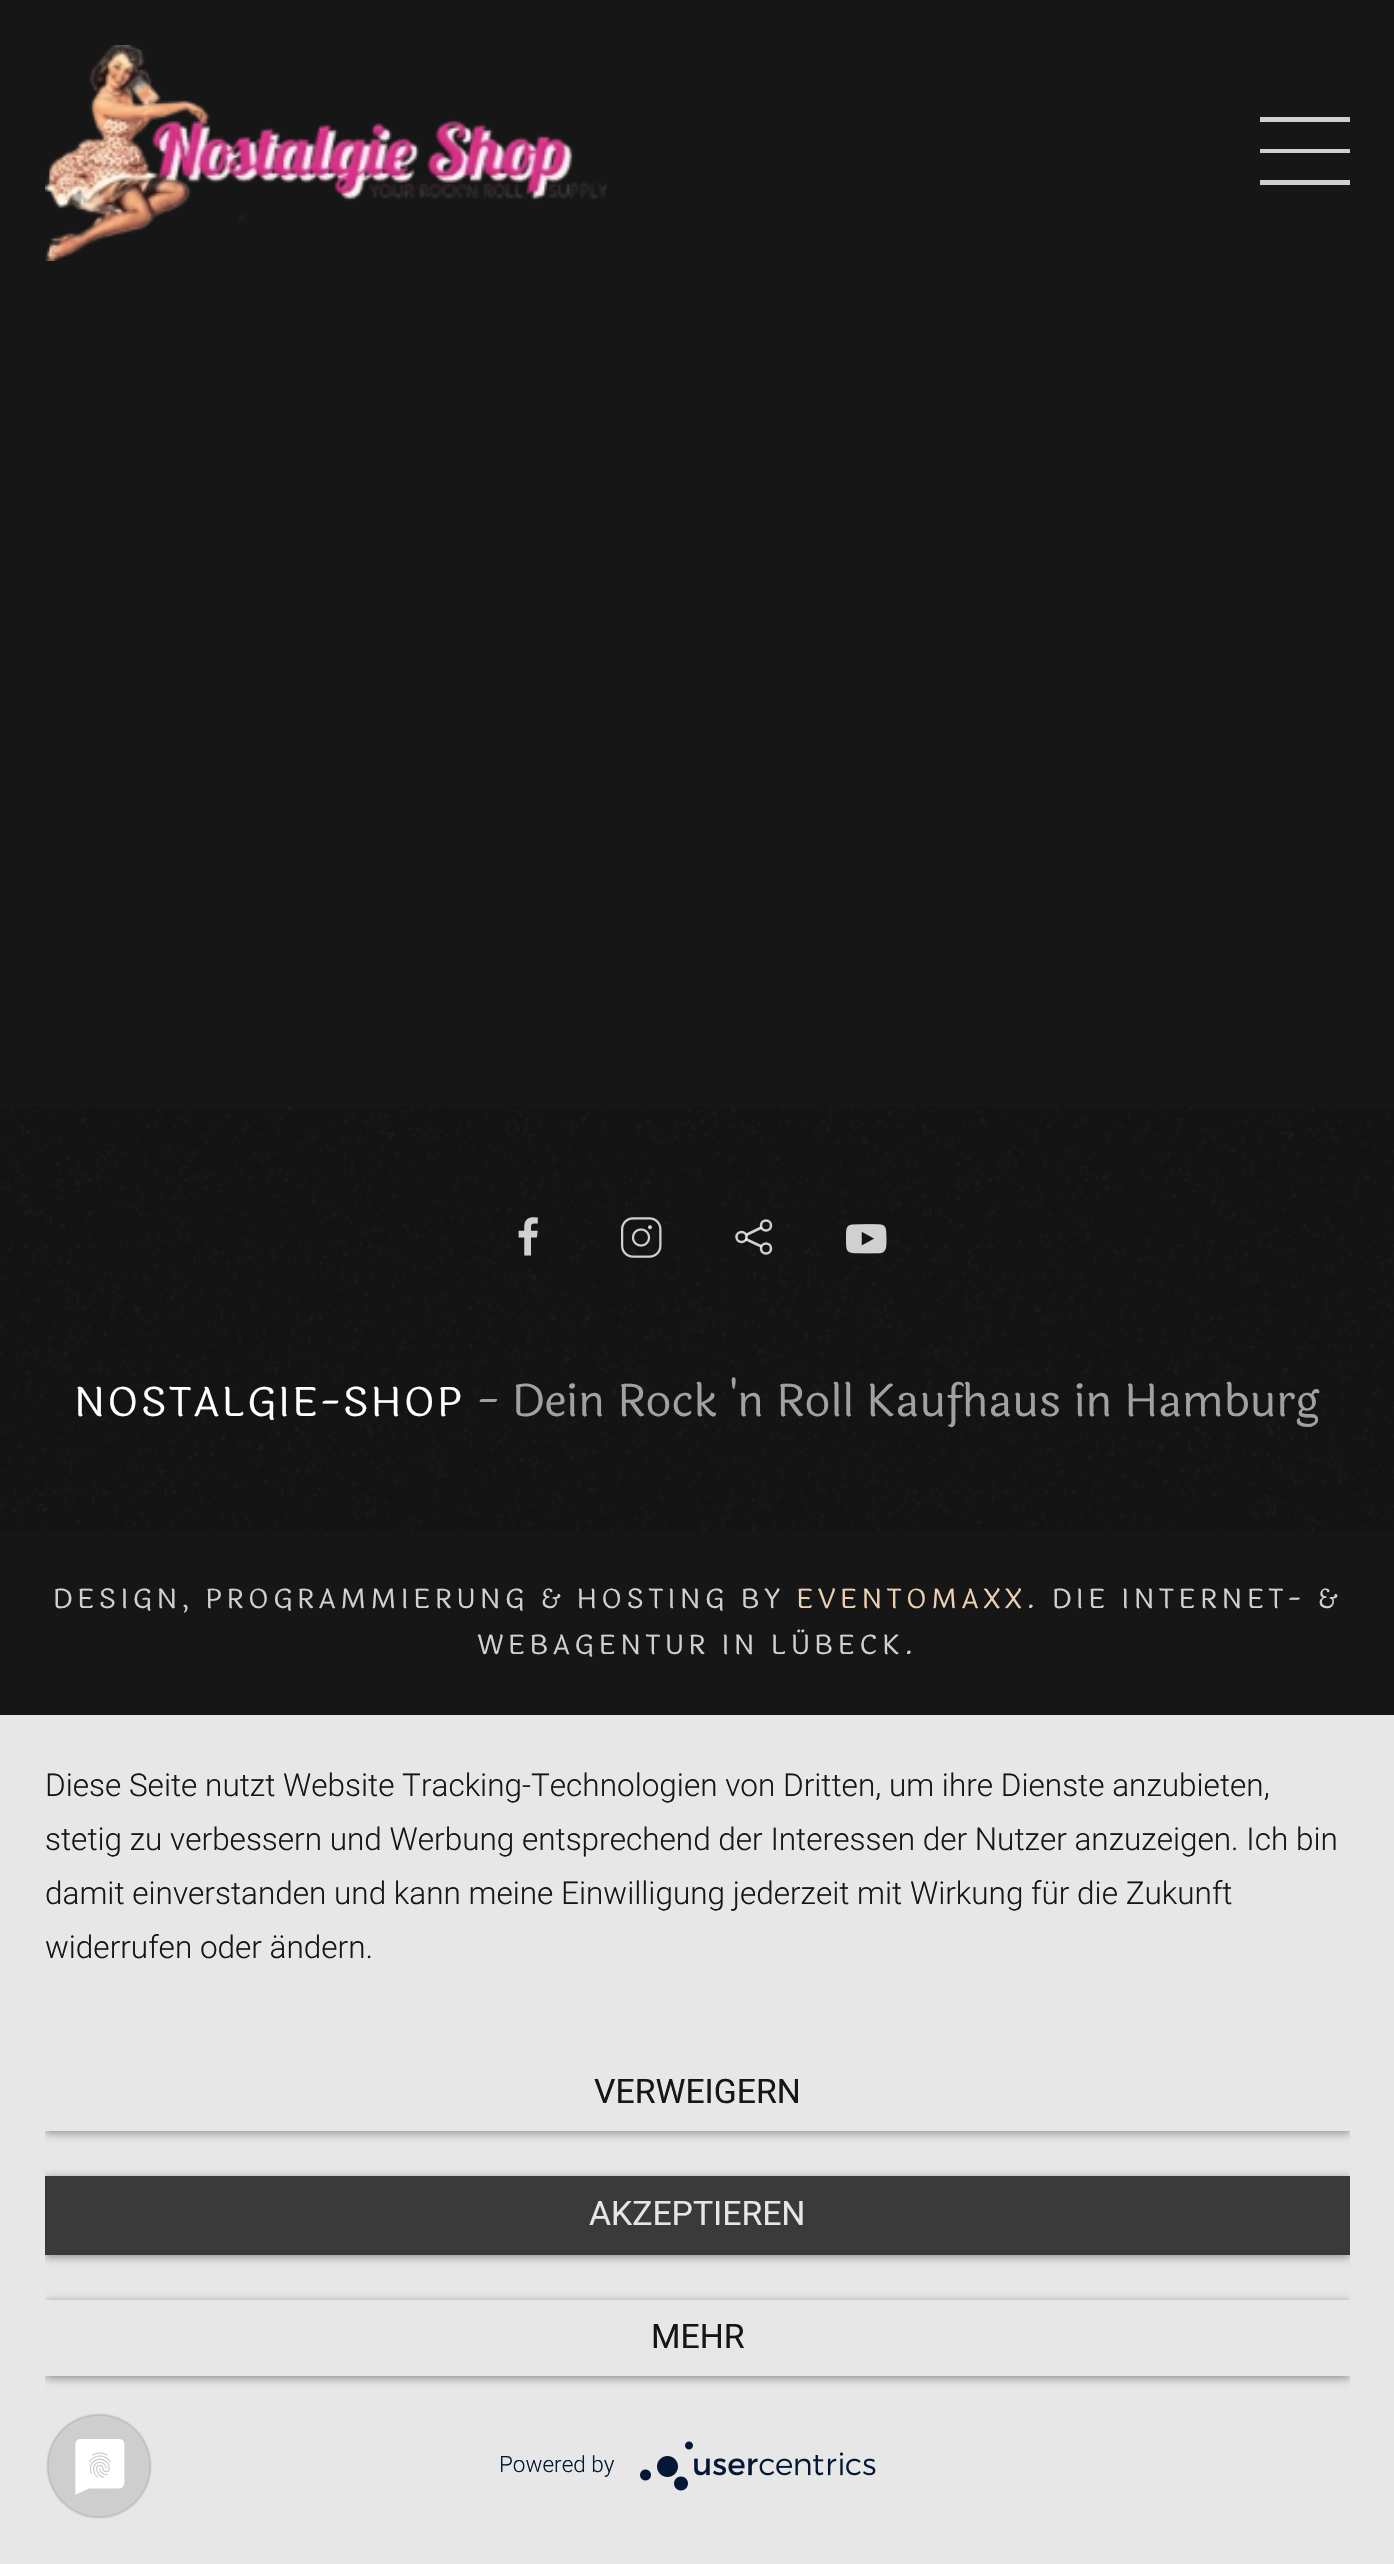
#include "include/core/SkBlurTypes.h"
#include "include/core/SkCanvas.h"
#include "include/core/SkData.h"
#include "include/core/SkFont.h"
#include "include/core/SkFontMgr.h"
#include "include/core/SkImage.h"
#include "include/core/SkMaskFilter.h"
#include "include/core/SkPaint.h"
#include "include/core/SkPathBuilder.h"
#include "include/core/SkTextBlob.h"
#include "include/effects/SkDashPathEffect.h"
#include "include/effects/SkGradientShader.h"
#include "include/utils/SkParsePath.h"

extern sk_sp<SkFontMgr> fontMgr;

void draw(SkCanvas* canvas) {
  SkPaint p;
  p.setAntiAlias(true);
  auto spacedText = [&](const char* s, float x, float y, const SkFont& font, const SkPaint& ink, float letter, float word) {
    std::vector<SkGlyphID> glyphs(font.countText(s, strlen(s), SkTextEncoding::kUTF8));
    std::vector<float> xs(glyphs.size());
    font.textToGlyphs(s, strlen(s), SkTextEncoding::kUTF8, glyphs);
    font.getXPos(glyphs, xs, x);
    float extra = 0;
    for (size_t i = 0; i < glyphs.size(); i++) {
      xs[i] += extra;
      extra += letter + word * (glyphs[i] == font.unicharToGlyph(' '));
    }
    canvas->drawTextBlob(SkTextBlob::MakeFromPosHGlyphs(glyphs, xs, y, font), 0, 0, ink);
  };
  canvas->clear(SkColorSetRGB(22, 22, 22));
  canvas->drawImageRect(SkImages::DeferredFromEncodedData(SkData::MakeFromFileName("images/1.png")), SkRect::MakeLTRB(45, 45, 607, 261), SkSamplingOptions());
  p.setColor(SkColorSetRGB(208, 208, 208));
  canvas->drawRect(SkRect::MakeLTRB(1260, 117, 1350, 122), p);
  canvas->drawRect(SkRect::MakeLTRB(1260, 149, 1350, 153), p);
  canvas->drawRect(SkRect::MakeLTRB(1260, 180, 1350, 185), p);
  p.setColor(SkColorSetRGB(19, 19, 19));
  canvas->drawRect(SkRect::MakeLTRB(0, 1107, 1394, 1532), p);
  canvas->drawImageRect(SkImages::DeferredFromEncodedData(SkData::MakeFromFileName("images/2.png")), SkRect::MakeLTRB(0, 1107, 1394, 1532), SkSamplingOptions());
  canvas->drawImageRect(SkImages::DeferredFromEncodedData(SkData::MakeFromFileName("images/3.png")), SkRect::MakeLTRB(518, 1217, 538, 1256), SkSamplingOptions());
  canvas->drawImageRect(SkImages::DeferredFromEncodedData(SkData::MakeFromFileName("images/4.png")), SkRect::MakeLTRB(621, 1217, 662, 1258), SkSamplingOptions());
  p.setStyle(SkPaint::kStroke_Style);
  p.setStrokeWidth(2.5f);
  p.setColor(SkColorSetARGB(204, 255, 255, 255));
  canvas->drawPath(SkPathBuilder().moveTo(761.5f, 1246.5f).lineTo(745.5f, 1239).moveTo(761.5f, 1227.5f).lineTo(746, 1235).detach(), p);
  canvas->drawCircle(741.5f, 1237, 5, p);
  canvas->drawCircle(766, 1225.5f, 5, p);
  canvas->drawCircle(766, 1248.5f, 5, p);
  canvas->drawImageRect(SkImages::DeferredFromEncodedData(SkData::MakeFromFileName("images/5.png")), SkRect::MakeLTRB(846, 1224, 887, 1254), SkSamplingOptions());
  p.setStyle(SkPaint::kFill_Style);
  p.setColor(SkColorSetRGB(231, 231, 231));
  canvas->drawRect(SkRect::MakeLTRB(0, 1715, 1394, 2564), p);
  canvas->save();
  canvas->clipRect(SkRect::MakeLTRB(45, 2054, 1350, 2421));
  p.setColor(SkColorSetARGB(102, 0, 0, 0));
  p.setMaskFilter(SkMaskFilter::MakeBlur(kNormal_SkBlurStyle, 4.5f));
  canvas->drawRect(SkRect::MakeLTRB(45, 2057, 1350, 2133), p);
  p.setMaskFilter(nullptr);
  canvas->restore();
  p.setColor(SkColorSetRGB(231, 231, 231));
  canvas->drawRect(SkRect::MakeLTRB(45, 2054, 1350, 2131), p);
  canvas->save();
  canvas->clipRect(SkRect::MakeLTRB(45, 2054, 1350, 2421));
  p.setColor(SkColorSetARGB(102, 0, 0, 0));
  p.setMaskFilter(SkMaskFilter::MakeBlur(kNormal_SkBlurStyle, 4.5f));
  canvas->drawRect(SkRect::MakeLTRB(45, 2178, 1350, 2257), p);
  p.setMaskFilter(nullptr);
  canvas->restore();
  p.setColor(SkColorSetRGB(58, 58, 58));
  canvas->drawRect(SkRect::MakeLTRB(45, 2176, 1350, 2255), p);
  canvas->save();
  canvas->clipRect(SkRect::MakeLTRB(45, 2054, 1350, 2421));
  canvas->clipPath(SkPathBuilder(SkPathFillType::kEvenOdd).moveTo(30, 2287).lineTo(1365, 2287).lineTo(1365, 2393).lineTo(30, 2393).close().moveTo(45, 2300).lineTo(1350, 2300).lineTo(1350, 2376).lineTo(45, 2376).close().detach(), true);
  p.setColor(SkColorSetARGB(102, 0, 0, 0));
  p.setMaskFilter(SkMaskFilter::MakeBlur(kNormal_SkBlurStyle, 4.5f));
  canvas->drawRect(SkRect::MakeLTRB(45, 2302, 1350, 2378), p);
  p.setMaskFilter(nullptr);
  canvas->restore();
  canvas->drawImageRect(SkImages::DeferredFromEncodedData(SkData::MakeFromFileName("images/6.png")), SkRect::MakeLTRB(640, 2441, 876, 2491), SkSamplingOptions());
  canvas->drawImageRect(SkImages::DeferredFromEncodedData(SkData::MakeFromFileName("images/7.png")), SkRect::MakeLTRB(46, 2413, 152, 2519), SkSamplingOptions());
  SkFont font1(fontMgr->matchFamilyStyle("Laila", SkFontStyle::Normal()), 40.5f);
  font1.setSubpixel(true);
  p.setColor(SK_ColorWHITE);
  spacedText("NOSTALGIE-SHOP", 74, 1416, font1, p, 2.25f, 0);
  SkFont font2(fontMgr->matchFamilyStyle("Laila", SkFontStyle::Normal()), 45);
  font2.setSubpixel(true);
  p.setColor(SkColorSetRGB(161, 161, 161));
  canvas->drawString("- Dein Rock 'n Roll Kaufhaus in Hamburg", 477, 1416, font2, p);
  SkFont font3(fontMgr->matchFamilyStyle("Laila", SkFontStyle::Normal()), 27);
  font3.setSubpixel(true);
  p.setColor(SkColorSetRGB(208, 208, 208));
  spacedText("DESIGN, PROGRAMMIERUNG & HOSTING BY", 53, 1608, font3, p, 4.5f, 0);
  p.setColor(SkColorSetRGB(236, 208, 178));
  spacedText("EVENTOMAXX", 796, 1608, font3, p, 4.5f, 0);
  p.setColor(SkColorSetRGB(208, 208, 208));
  spacedText(". DIE INTERNET- &", 1026, 1608, font3, p, 4.5f, 0);
  spacedText("WEBAGENTUR IN LÜBECK.", 477, 1654, font3, p, 4.5f, 0);
  SkFont font4(fontMgr->matchFamilyStyle("Roboto", SkFontStyle(300, SkFontStyle::kNormal_Width, SkFontStyle::kUpright_Slant)), 31.5f);
  font4.setSubpixel(true);
  p.setColor(SkColorSetRGB(22, 22, 22));
  canvas->drawString("Diese Seite nutzt Website Tracking-Technologien von Dritten, um ihre Dienste anzubieten,", 45, 1796, font4, p);
  canvas->drawString("stetig zu verbessern und Werbung entsprechend der Interessen der Nutzer anzuzeigen. Ich bin", 45, 1850, font4, p);
  canvas->drawString("damit einverstanden und kann meine Einwilligung jederzeit mit Wirkung für die Zukunft", 45, 1904, font4, p);
  canvas->drawString("widerrufen oder ändern.", 45, 1958, font4, p);
  SkFont font5(fontMgr->matchFamilyStyle("Roboto", SkFontStyle::Normal()), 33.75f);
  font5.setSubpixel(true);
  canvas->drawString("VERWEIGERN", 594, 2103, font5, p);
  p.setColor(SkColorSetRGB(230, 230, 230));
  canvas->drawString("AKZEPTIEREN", 589, 2225, font5, p);
  p.setColor(SkColorSetRGB(22, 22, 22));
  canvas->drawString("MEHR", 651, 2348, font5, p);
  SkFont font6(fontMgr->matchFamilyStyle("Roboto", SkFontStyle(300, SkFontStyle::kNormal_Width, SkFontStyle::kUpright_Slant)), 22.5f);
  font6.setSubpixel(true);
  p.setColor(SkColorSetRGB(2, 24, 54));
  canvas->drawString("Powered by", 499, 2472, font6, p);
}
